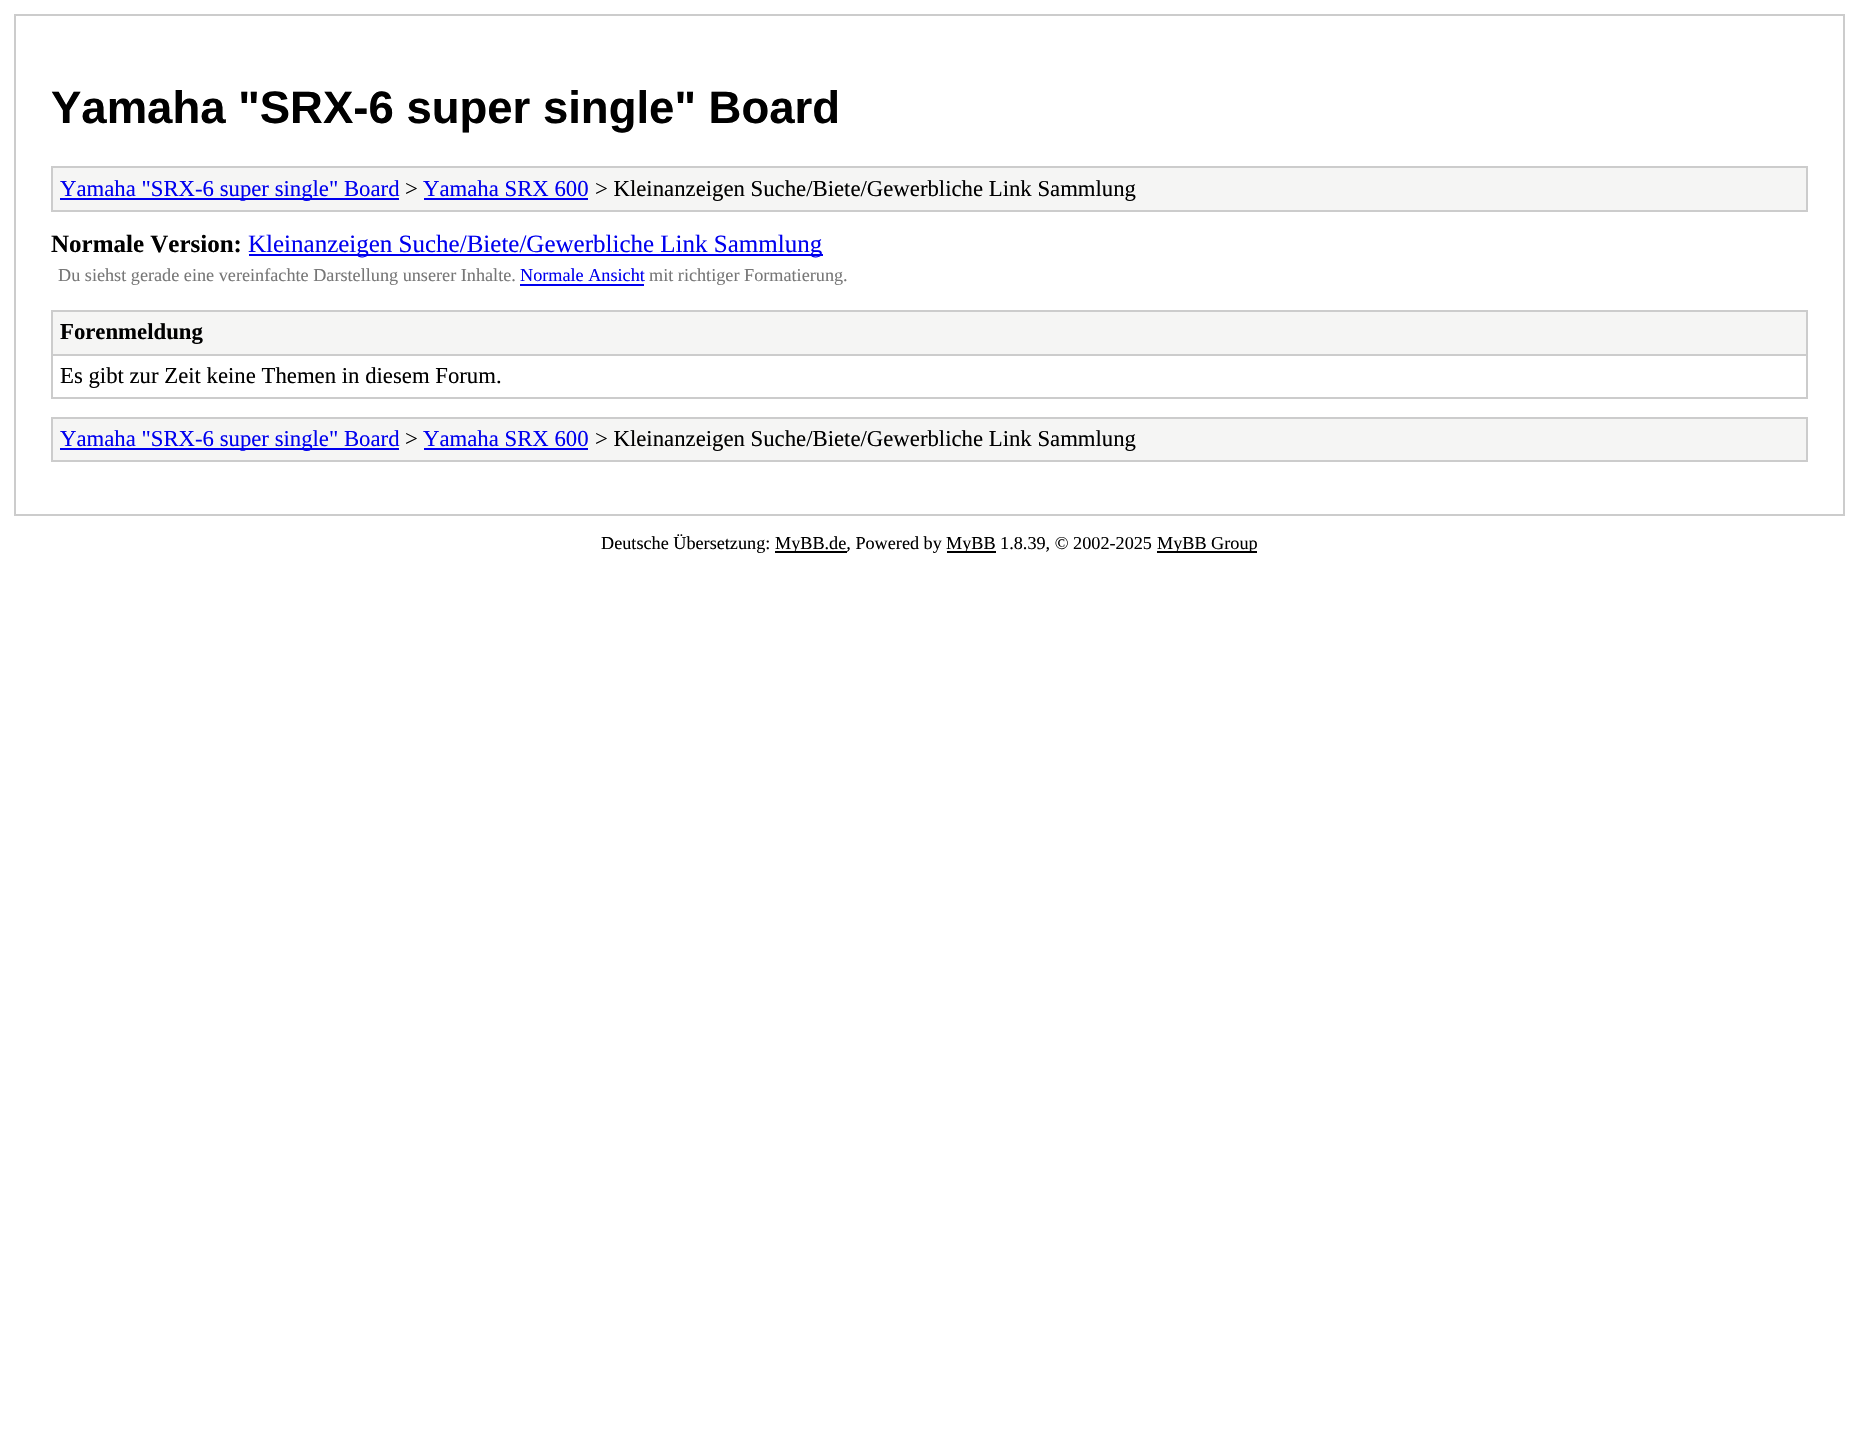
#include "include/core/SkBlurTypes.h"
#include "include/core/SkCanvas.h"
#include "include/core/SkData.h"
#include "include/core/SkFont.h"
#include "include/core/SkFontMgr.h"
#include "include/core/SkImage.h"
#include "include/core/SkMaskFilter.h"
#include "include/core/SkPaint.h"
#include "include/core/SkPathBuilder.h"
#include "include/core/SkTextBlob.h"
#include "include/effects/SkDashPathEffect.h"
#include "include/effects/SkGradientShader.h"
#include "include/utils/SkParsePath.h"

extern sk_sp<SkFontMgr> fontMgr;

void draw(SkCanvas* canvas) {
  SkPaint p;
  p.setAntiAlias(true);
  canvas->clear(SK_ColorWHITE);
  p.setStyle(SkPaint::kStroke_Style);
  p.setStrokeWidth(2);
  p.setColor(SkColorSetRGB(204, 204, 204));
  canvas->drawRect(SkRect::MakeLTRB(15, 15, 1844, 515), p);
  p.setStyle(SkPaint::kFill_Style);
  p.setColor(SkColorSetRGB(245, 245, 244));
  canvas->drawRect(SkRect::MakeLTRB(52, 167, 1807, 211), p);
  p.setStyle(SkPaint::kStroke_Style);
  p.setColor(SkColorSetRGB(204, 204, 204));
  canvas->drawRect(SkRect::MakeLTRB(52, 167, 1807, 211), p);
  p.setStyle(SkPaint::kFill_Style);
  p.setColor(SkColorSetRGB(0, 0, 238));
  canvas->drawRect(SkRect::MakeLTRB(60, 198, 399, 200), p);
  canvas->drawRect(SkRect::MakeLTRB(424, 198, 588, 200), p);
  canvas->drawRect(SkRect::MakeLTRB(249, 254, 823, 256), p);
  canvas->drawRect(SkRect::MakeLTRB(520, 284, 644, 286), p);
  p.setStyle(SkPaint::kStroke_Style);
  p.setColor(SkColorSetRGB(204, 204, 204));
  canvas->drawRect(SkRect::MakeLTRB(52, 311, 1807, 398), p);
  p.setStyle(SkPaint::kFill_Style);
  p.setColor(SkColorSetRGB(245, 245, 244));
  canvas->drawRect(SkRect::MakeLTRB(53, 312, 1806, 354), p);
  p.setColor(SkColorSetRGB(204, 204, 204));
  canvas->drawRect(SkRect::MakeLTRB(53, 354, 1806, 356), p);
  p.setColor(SkColorSetRGB(245, 245, 244));
  canvas->drawRect(SkRect::MakeLTRB(52, 418, 1807, 461), p);
  p.setStyle(SkPaint::kStroke_Style);
  p.setColor(SkColorSetRGB(204, 204, 204));
  canvas->drawRect(SkRect::MakeLTRB(52, 418, 1807, 461), p);
  p.setStyle(SkPaint::kFill_Style);
  p.setColor(SkColorSetRGB(0, 0, 238));
  canvas->drawRect(SkRect::MakeLTRB(60, 448, 399, 450), p);
  canvas->drawRect(SkRect::MakeLTRB(424, 448, 588, 450), p);
  p.setColor(SK_ColorBLACK);
  canvas->drawRect(SkRect::MakeLTRB(775, 551, 847, 553), p);
  canvas->drawRect(SkRect::MakeLTRB(947, 551, 996, 553), p);
  canvas->drawRect(SkRect::MakeLTRB(1157, 551, 1257, 553), p);
  SkFont font1(fontMgr->matchFamilyStyle("Liberation Sans", SkFontStyle::Bold()), 45.5f);
  font1.setSubpixel(true);
  canvas->drawString("Yamaha \"SRX-6 super single\" Board", 51, 123, font1, p);
  SkFont font2(fontMgr->matchFamilyStyle("Liberation Serif", SkFontStyle::Normal()), 22.75f);
  font2.setSubpixel(true);
  p.setColor(SkColorSetRGB(0, 0, 238));
  canvas->drawString("Yamaha \"SRX-6 super single\" Board", 60, 196, font2, p);
  p.setColor(SK_ColorBLACK);
  canvas->drawString(">", 405, 196, font2, p);
  p.setColor(SkColorSetRGB(0, 0, 238));
  canvas->drawString("Yamaha SRX 600", 423, 196, font2, p);
  p.setColor(SK_ColorBLACK);
  canvas->drawString("> Kleinanzeigen Suche/Biete/Gewerbliche Link Sammlung", 595, 196, font2, p);
  SkFont font3(fontMgr->matchFamilyStyle("Liberation Serif", SkFontStyle::Bold()), 25);
  font3.setSubpixel(true);
  canvas->drawString("Normale Version:", 51, 252, font3, p);
  SkFont font4(fontMgr->matchFamilyStyle("Liberation Serif", SkFontStyle::Normal()), 25);
  font4.setSubpixel(true);
  p.setColor(SkColorSetRGB(0, 0, 238));
  canvas->drawString("Kleinanzeigen Suche/Biete/Gewerbliche Link Sammlung", 248, 252, font4, p);
  SkFont font5(fontMgr->matchFamilyStyle("Liberation Serif", SkFontStyle::Normal()), 18.2f);
  font5.setSubpixel(true);
  p.setColor(SkColorSetRGB(119, 119, 119));
  canvas->drawString("Du siehst gerade eine vereinfachte Darstellung unserer Inhalte.", 58, 281, font5, p);
  p.setColor(SkColorSetRGB(0, 0, 238));
  canvas->drawString("Normale Ansicht", 520, 281, font5, p);
  p.setColor(SkColorSetRGB(119, 119, 119));
  canvas->drawString("mit richtiger Formatierung.", 649, 281, font5, p);
  SkFont font6(fontMgr->matchFamilyStyle("Liberation Serif", SkFontStyle::Bold()), 22.75f);
  font6.setSubpixel(true);
  p.setColor(SK_ColorBLACK);
  canvas->drawString("Forenmeldung", 60, 339, font6, p);
  canvas->drawString("Es gibt zur Zeit keine Themen in diesem Forum.", 60, 383, font2, p);
  p.setColor(SkColorSetRGB(0, 0, 238));
  canvas->drawString("Yamaha \"SRX-6 super single\" Board", 60, 446, font2, p);
  p.setColor(SK_ColorBLACK);
  canvas->drawString(">", 405, 446, font2, p);
  p.setColor(SkColorSetRGB(0, 0, 238));
  canvas->drawString("Yamaha SRX 600", 423, 446, font2, p);
  p.setColor(SK_ColorBLACK);
  canvas->drawString("> Kleinanzeigen Suche/Biete/Gewerbliche Link Sammlung", 595, 446, font2, p);
  canvas->drawString("Deutsche Übersetzung:", 601, 549, font5, p);
  canvas->drawString("MyBB.de, Powered by", 775, 549, font5, p);
  canvas->drawString("MyBB 1.8.39, © 2002-2025", 946, 549, font5, p);
  canvas->drawString("MyBB Group", 1157, 549, font5, p);
}
